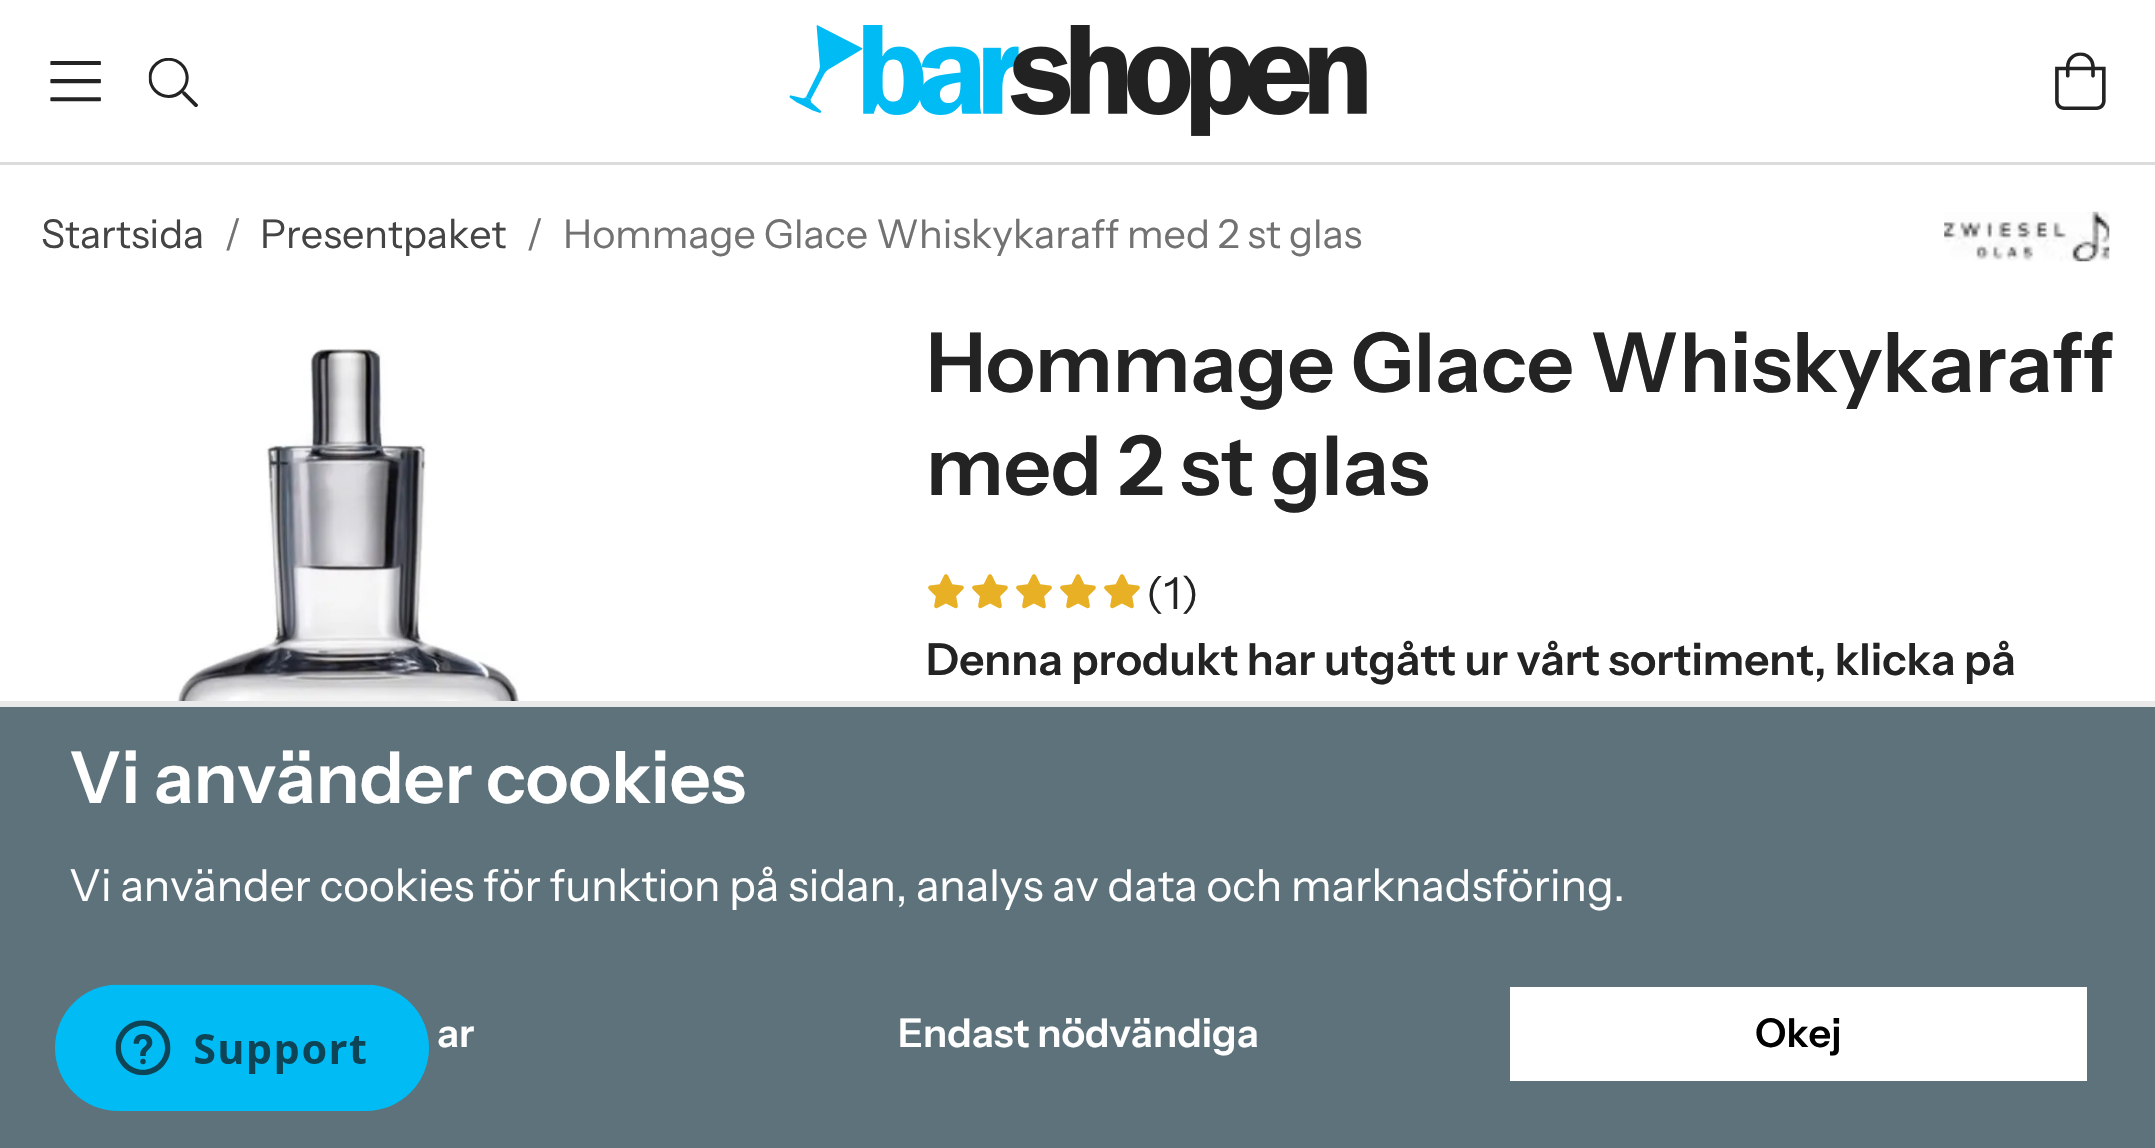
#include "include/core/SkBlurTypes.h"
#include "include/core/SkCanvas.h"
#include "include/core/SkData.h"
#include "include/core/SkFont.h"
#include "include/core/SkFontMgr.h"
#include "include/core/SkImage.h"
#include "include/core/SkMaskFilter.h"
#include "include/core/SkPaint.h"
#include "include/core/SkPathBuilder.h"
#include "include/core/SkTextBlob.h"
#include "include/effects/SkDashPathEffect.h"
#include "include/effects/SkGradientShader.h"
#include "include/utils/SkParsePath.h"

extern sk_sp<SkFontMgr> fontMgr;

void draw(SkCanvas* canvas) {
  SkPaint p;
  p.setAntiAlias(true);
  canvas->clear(SK_ColorWHITE);
  p.setColor(SkColorSetRGB(220, 220, 220));
  canvas->drawRect(SkRect::MakeLTRB(0, 162, 2155, 165), p);
  canvas->drawImageRect(SkImages::DeferredFromEncodedData(SkData::MakeFromFileName("images/1.png")), SkRect::MakeLTRB(50, 61, 101, 102), SkSamplingOptions());
  canvas->drawImageRect(SkImages::DeferredFromEncodedData(SkData::MakeFromFileName("images/2.png")), SkRect::MakeLTRB(148, 58, 198, 107), SkSamplingOptions());
  canvas->drawImageRect(SkImages::DeferredFromEncodedData(SkData::MakeFromFileName("images/3.png")), SkRect::MakeLTRB(789, 25, 1367, 136), SkSamplingOptions());
  canvas->drawImageRect(SkImages::DeferredFromEncodedData(SkData::MakeFromFileName("images/4.png")), SkRect::MakeLTRB(2055, 52, 2106, 110), SkSamplingOptions());
  canvas->drawImageRect(SkImages::DeferredFromEncodedData(SkData::MakeFromFileName("images/5.png")), SkRect::MakeLTRB(1944, 211, 2110, 262), SkSamplingOptions());
  canvas->drawImageRect(SkImages::DeferredFromEncodedData(SkData::MakeFromFileName("images/6.png")), SkRect::MakeLTRB(177, 348, 784, 701), SkSamplingOptions());
  canvas->drawImageRect(SkImages::DeferredFromEncodedData(SkData::MakeFromFileName("images/7.png")), SkRect::MakeLTRB(928, 574, 964, 609), SkSamplingOptions());
  canvas->drawImageRect(SkImages::DeferredFromEncodedData(SkData::MakeFromFileName("images/7.png")), SkRect::MakeLTRB(972, 574, 1008, 609), SkSamplingOptions());
  canvas->drawImageRect(SkImages::DeferredFromEncodedData(SkData::MakeFromFileName("images/8.png")), SkRect::MakeLTRB(1016, 574, 1052, 609), SkSamplingOptions());
  canvas->drawImageRect(SkImages::DeferredFromEncodedData(SkData::MakeFromFileName("images/7.png")), SkRect::MakeLTRB(1060, 574, 1096, 609), SkSamplingOptions());
  canvas->drawImageRect(SkImages::DeferredFromEncodedData(SkData::MakeFromFileName("images/7.png")), SkRect::MakeLTRB(1104, 574, 1140, 609), SkSamplingOptions());
  p.setColor(SkColorSetRGB(93, 114, 122));
  canvas->drawRect(SkRect::MakeLTRB(0, 707, 2155, 1148), p);
  p.setColor(SkColorSetRGB(233, 233, 233));
  canvas->drawRect(SkRect::MakeLTRB(0, 701, 2155, 707), p);
  p.setColor(SK_ColorWHITE);
  canvas->drawRect(SkRect::MakeLTRB(1510, 987, 2087, 1081), p);
  canvas->drawImageRect(SkImages::DeferredFromEncodedData(SkData::MakeFromFileName("images/9.png")), SkRect::MakeLTRB(55, 984, 429, 1111), SkSamplingOptions());
  SkFont font1(fontMgr->matchFamilyStyle("Instrument Sans", SkFontStyle::Normal()), 39.6f);
  font1.setSubpixel(true);
  p.setColor(SkColorSetRGB(68, 68, 68));
  canvas->drawString("Startsida", 41, 248, font1, p);
  p.setColor(SkColorSetRGB(114, 114, 114));
  canvas->drawString("/", 224, 248, font1, p);
  p.setColor(SkColorSetRGB(68, 68, 68));
  canvas->drawString("Presentpaket", 260, 248, font1, p);
  p.setColor(SkColorSetRGB(114, 114, 114));
  canvas->drawString("/", 526, 248, font1, p);
  canvas->drawString("Hommage Glace Whiskykaraff med 2 st glas", 563, 248, font1, p);
  SkFont font2(fontMgr->matchFamilyStyle("Instrument Sans", SkFontStyle(600, SkFontStyle::kNormal_Width, SkFontStyle::kUpright_Slant)), 82.5f);
  font2.setSubpixel(true);
  p.setColor(SkColorSetRGB(35, 35, 35));
  canvas->drawString("Hommage Glace Whiskykaraff", 926, 392, font2, p);
  canvas->drawString("med 2 st glas", 926, 495, font2, p);
  SkFont font3(fontMgr->matchFamilyStyle("Instrument Sans", SkFontStyle::Normal()), 44);
  font3.setSubpixel(true);
  canvas->drawString("(1)", 1146, 609, font3, p);
  SkFont font4(fontMgr->matchFamilyStyle("Instrument Sans", SkFontStyle(600, SkFontStyle::kNormal_Width, SkFontStyle::kUpright_Slant)), 44);
  font4.setSubpixel(true);
  canvas->drawString("Denna produkt har utgått ur vårt sortiment, klicka på", 926, 675, font4, p);
  SkFont font5(fontMgr->matchFamilyStyle("Instrument Sans", SkFontStyle(600, SkFontStyle::kNormal_Width, SkFontStyle::kUpright_Slant)), 71.5f);
  font5.setSubpixel(true);
  p.setColor(SK_ColorWHITE);
  canvas->drawString("Vi använder cookies", 69, 803, font5, p);
  canvas->drawString("Vi använder cookies för funktion på sidan, analys av data och marknadsföring.", 69, 901, font3, p);
  SkFont font6(fontMgr->matchFamilyStyle("Instrument Sans", SkFontStyle(600, SkFontStyle::kNormal_Width, SkFontStyle::kUpright_Slant)), 39.6f);
  font6.setSubpixel(true);
  canvas->drawString("ar", 437, 1047, font6, p);
  canvas->drawString("Endast nödvändiga", 898, 1047, font6, p);
  p.setColor(SK_ColorBLACK);
  canvas->drawString("Okej", 1755, 1047, font6, p);
}
